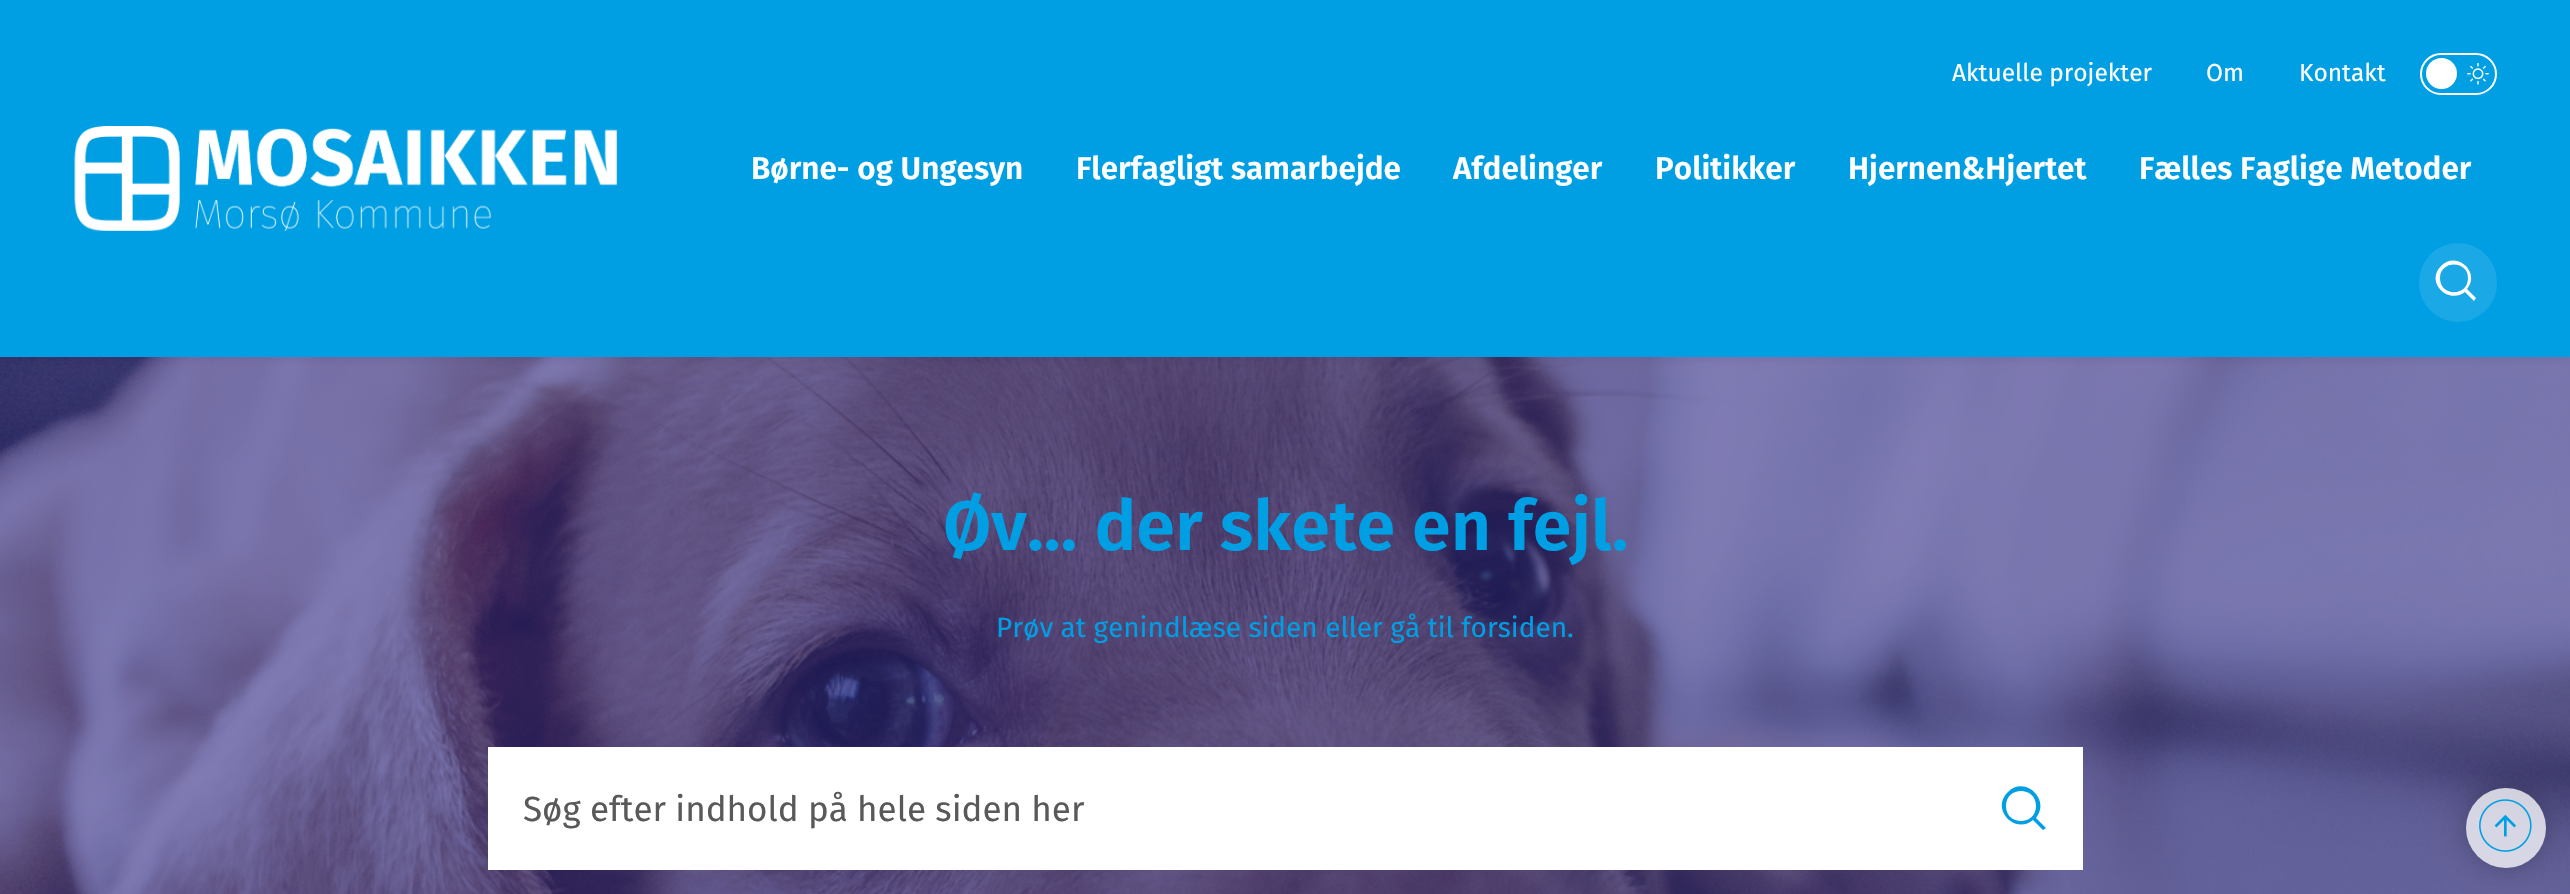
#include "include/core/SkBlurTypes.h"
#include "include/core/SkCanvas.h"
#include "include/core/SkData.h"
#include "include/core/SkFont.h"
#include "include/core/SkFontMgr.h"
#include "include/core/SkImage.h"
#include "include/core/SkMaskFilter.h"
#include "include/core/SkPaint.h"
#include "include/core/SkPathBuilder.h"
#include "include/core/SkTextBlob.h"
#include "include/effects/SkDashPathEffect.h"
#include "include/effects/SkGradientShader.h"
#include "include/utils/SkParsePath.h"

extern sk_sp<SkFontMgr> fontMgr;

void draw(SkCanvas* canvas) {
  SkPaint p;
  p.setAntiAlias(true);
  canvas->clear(SK_ColorWHITE);
  canvas->drawImageRect(SkImages::DeferredFromEncodedData(SkData::MakeFromFileName("images/3.png")), SkRect::MakeLTRB(0, 357, 2570, 894), SkSamplingOptions());
  p.setColor(SkColorSetARGB(13, 0, 0, 0));
  p.setMaskFilter(SkMaskFilter::MakeBlur(kNormal_SkBlurStyle, 3.5f));
  canvas->drawRect(SkRect::MakeLTRB(0, 4, 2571, 361), p);
  p.setMaskFilter(nullptr);
  p.setColor(SkColorSetRGB(0, 159, 227));
  canvas->drawRect(SkRect::MakeLTRB(0, 0, 2570, 357), p);
  canvas->drawImageRect(SkImages::DeferredFromEncodedData(SkData::MakeFromFileName("images/1.png")), SkRect::MakeLTRB(74, 126, 618, 231), SkSamplingOptions());
  p.setStyle(SkPaint::kStroke_Style);
  p.setStrokeWidth(2);
  p.setColor(SK_ColorWHITE);
  canvas->drawRoundRect(SkRect::MakeLTRB(2421, 54, 2496, 94), 20, 20, p);
  p.setStyle(SkPaint::kFill_Style);
  canvas->drawCircle(2441.5f, 73.5f, 15.5f, p);
  canvas->drawImageRect(SkImages::DeferredFromEncodedData(SkData::MakeFromFileName("images/2.png")), SkRect::MakeLTRB(2467, 63, 2489, 85), SkSamplingOptions());
  p.setColor(SkColorSetRGB(26, 169, 230));
  canvas->drawRoundRect(SkRect::MakeLTRB(2419, 243, 2497, 322), 39, 39, p);
  p.setColor(SK_ColorWHITE);
  canvas->drawPath(SkPathBuilder(SkPathFillType::kEvenOdd).moveTo(2465, 292).cubicTo(2448, 305, 2425, 282, 2441, 266).cubicTo(2457, 250, 2481, 273, 2467, 289).lineTo(2476, 298).lineTo(2474, 301).close().moveTo(2468, 278).cubicTo(2468, 297, 2440, 297, 2440, 278).cubicTo(2440, 260, 2468, 260, 2468, 278).close().detach(), p);
  canvas->drawRect(SkRect::MakeLTRB(488, 747, 2083, 870), p);
  p.setColor(SkColorSetRGB(0, 159, 227));
  canvas->drawPath(SkPathBuilder(SkPathFillType::kEvenOdd).moveTo(2033, 820).cubicTo(2015, 835, 1990, 809, 2008, 792).cubicTo(2025, 775, 2051, 800, 2036, 818).lineTo(2046, 828).lineTo(2043, 830).close().moveTo(2036, 806).cubicTo(2036, 826, 2006, 826, 2006, 806).cubicTo(2006, 786, 2036, 786, 2036, 806).close().detach(), p);
  canvas->save();
  canvas->clipPath(SkPathBuilder(SkPathFillType::kEvenOdd).moveTo(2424, 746).lineTo(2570, 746).lineTo(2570, 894).lineTo(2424, 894).close().moveTo(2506, 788).cubicTo(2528, 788, 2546, 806, 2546, 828).cubicTo(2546, 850, 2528, 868, 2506, 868).cubicTo(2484, 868, 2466, 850, 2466, 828).cubicTo(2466, 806, 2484, 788, 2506, 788).close().detach(), true);
  p.setColor(SkColorSetARGB(51, 0, 0, 0));
  p.setMaskFilter(SkMaskFilter::MakeBlur(kNormal_SkBlurStyle, 13));
  canvas->drawRoundRect(SkRect::MakeLTRB(2464, 786, 2548, 870), 42, 42, p);
  p.setMaskFilter(nullptr);
  canvas->restore();
  p.setColor(SkColorSetARGB(191, 255, 255, 255));
  canvas->drawCircle(2506, 828, 40, p);
  canvas->drawImageRect(SkImages::DeferredFromEncodedData(SkData::MakeFromFileName("images/4.png")), SkRect::MakeLTRB(2479, 799, 2532, 852), SkSamplingOptions());
  SkFont font1(fontMgr->matchFamilyStyle("Fira Sans", SkFontStyle::Normal()), 24.5f);
  font1.setSubpixel(true);
  p.setColor(SK_ColorWHITE);
  canvas->drawString("Aktuelle projekter", 1952, 81, font1, p);
  canvas->drawString("Om", 2206, 81, font1, p);
  canvas->drawString("Kontakt", 2299, 81, font1, p);
  SkFont font2(fontMgr->matchFamilyStyle("Fira Sans", SkFontStyle(600, SkFontStyle::kNormal_Width, SkFontStyle::kUpright_Slant)), 31.5f);
  font2.setSubpixel(true);
  canvas->drawString("Børne- og Ungesyn", 751, 179, font2, p);
  canvas->drawString("Flerfagligt samarbejde", 1076, 179, font2, p);
  canvas->drawString("Afdelinger", 1453, 179, font2, p);
  canvas->drawString("Politikker", 1655, 179, font2, p);
  canvas->drawString("Hjernen&Hjertet", 1848, 179, font2, p);
  canvas->drawString("Fælles Faglige Metoder", 2139, 179, font2, p);
  SkFont font3(fontMgr->matchFamilyStyle("Fira Sans", SkFontStyle(600, SkFontStyle::kNormal_Width, SkFontStyle::kUpright_Slant)), 70);
  font3.setSubpixel(true);
  p.setColor(SkColorSetRGB(0, 159, 227));
  canvas->drawString("Øv... der skete en fejl.", 943, 550, font3, p);
  SkFont font4(fontMgr->matchFamilyStyle("Fira Sans", SkFontStyle::Normal()), 28);
  font4.setSubpixel(true);
  canvas->drawString("Prøv at genindlæse siden eller gå til forsiden.", 996, 637, font4, p);
  SkFont font5(fontMgr->matchFamilyStyle("Fira Sans", SkFontStyle::Normal()), 35);
  font5.setSubpixel(true);
  p.setColor(SkColorSetRGB(89, 89, 89));
  canvas->drawString("Søg efter indhold på hele siden her", 523, 821, font5, p);
}
